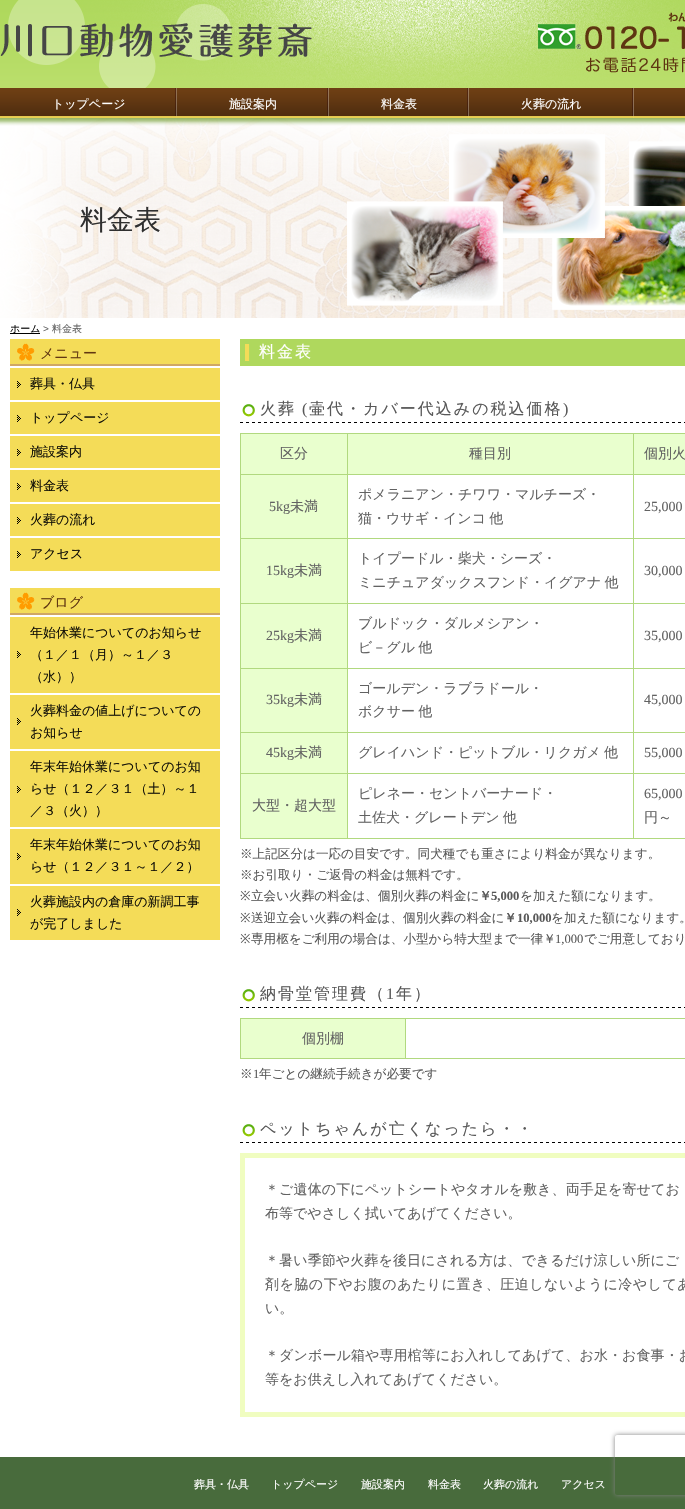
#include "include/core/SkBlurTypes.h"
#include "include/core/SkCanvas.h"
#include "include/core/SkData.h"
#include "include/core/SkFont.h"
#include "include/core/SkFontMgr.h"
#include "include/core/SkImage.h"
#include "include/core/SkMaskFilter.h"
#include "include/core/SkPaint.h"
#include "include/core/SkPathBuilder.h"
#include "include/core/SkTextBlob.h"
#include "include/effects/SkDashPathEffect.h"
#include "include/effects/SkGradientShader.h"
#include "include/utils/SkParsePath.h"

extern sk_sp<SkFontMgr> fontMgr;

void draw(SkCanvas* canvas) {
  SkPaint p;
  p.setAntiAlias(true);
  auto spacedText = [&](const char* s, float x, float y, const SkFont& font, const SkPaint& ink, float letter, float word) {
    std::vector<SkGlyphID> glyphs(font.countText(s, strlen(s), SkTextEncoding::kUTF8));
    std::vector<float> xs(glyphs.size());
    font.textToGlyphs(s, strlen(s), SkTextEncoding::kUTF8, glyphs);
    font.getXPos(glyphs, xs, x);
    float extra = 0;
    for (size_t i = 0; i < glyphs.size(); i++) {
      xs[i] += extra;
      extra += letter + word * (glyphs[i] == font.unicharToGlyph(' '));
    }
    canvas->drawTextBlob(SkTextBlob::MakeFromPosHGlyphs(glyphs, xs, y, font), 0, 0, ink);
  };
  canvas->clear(SK_ColorWHITE);
  canvas->drawImageRect(SkImages::DeferredFromEncodedData(SkData::MakeFromFileName("images/1.png")), SkRect::MakeLTRB(0, 0, 539, 88), SkSamplingOptions());
  canvas->drawImageRect(SkImages::DeferredFromEncodedData(SkData::MakeFromFileName("images/2.png")), SkRect::MakeLTRB(539, 0, 685, 88), SkSamplingOptions());
  canvas->drawImageRect(SkImages::DeferredFromEncodedData(SkData::MakeFromFileName("images/3.png")), SkRect::MakeLTRB(0, 88, 685, 118), SkSamplingOptions());
  canvas->drawImageRect(SkImages::DeferredFromEncodedData(SkData::MakeFromFileName("images/4.png")), SkRect::MakeLTRB(175, 88, 177, 117), SkSamplingOptions());
  canvas->drawImageRect(SkImages::DeferredFromEncodedData(SkData::MakeFromFileName("images/5.png")), SkRect::MakeLTRB(327, 88, 329, 118), SkSamplingOptions());
  canvas->drawImageRect(SkImages::DeferredFromEncodedData(SkData::MakeFromFileName("images/5.png")), SkRect::MakeLTRB(467, 88, 469, 118), SkSamplingOptions());
  canvas->drawImageRect(SkImages::DeferredFromEncodedData(SkData::MakeFromFileName("images/5.png")), SkRect::MakeLTRB(632, 88, 634, 118), SkSamplingOptions());
  canvas->drawImageRect(SkImages::DeferredFromEncodedData(SkData::MakeFromFileName("images/6.png")), SkRect::MakeLTRB(0, 118, 685, 318), SkSamplingOptions());
  p.setColor(SK_ColorBLACK);
  canvas->drawRect(SkRect::MakeLTRB(10, 333, 40, 334), p);
  canvas->drawImageRect(SkImages::DeferredFromEncodedData(SkData::MakeFromFileName("images/7.png")), SkRect::MakeLTRB(10, 339, 220, 366), SkSamplingOptions());
  p.setColor(SkColorSetRGB(244, 220, 88));
  canvas->drawRect(SkRect::MakeLTRB(10, 368, 220, 571), p);
  canvas->drawImageRect(SkImages::DeferredFromEncodedData(SkData::MakeFromFileName("images/8.png")), SkRect::MakeLTRB(17, 381, 21, 388), SkSamplingOptions());
  p.setColor(SK_ColorWHITE);
  canvas->drawRect(SkRect::MakeLTRB(10, 400, 220, 402), p);
  canvas->drawImageRect(SkImages::DeferredFromEncodedData(SkData::MakeFromFileName("images/8.png")), SkRect::MakeLTRB(17, 415, 21, 422), SkSamplingOptions());
  canvas->drawRect(SkRect::MakeLTRB(10, 434, 220, 436), p);
  canvas->drawImageRect(SkImages::DeferredFromEncodedData(SkData::MakeFromFileName("images/8.png")), SkRect::MakeLTRB(17, 449, 21, 456), SkSamplingOptions());
  canvas->drawRect(SkRect::MakeLTRB(10, 468, 220, 470), p);
  canvas->drawImageRect(SkImages::DeferredFromEncodedData(SkData::MakeFromFileName("images/8.png")), SkRect::MakeLTRB(17, 483, 21, 490), SkSamplingOptions());
  canvas->drawRect(SkRect::MakeLTRB(10, 502, 220, 504), p);
  canvas->drawImageRect(SkImages::DeferredFromEncodedData(SkData::MakeFromFileName("images/8.png")), SkRect::MakeLTRB(17, 517, 21, 524), SkSamplingOptions());
  canvas->drawRect(SkRect::MakeLTRB(10, 536, 220, 538), p);
  canvas->drawImageRect(SkImages::DeferredFromEncodedData(SkData::MakeFromFileName("images/8.png")), SkRect::MakeLTRB(17, 551, 21, 558), SkSamplingOptions());
  canvas->drawImageRect(SkImages::DeferredFromEncodedData(SkData::MakeFromFileName("images/7.png")), SkRect::MakeLTRB(10, 588, 220, 615), SkSamplingOptions());
  p.setColor(SkColorSetRGB(244, 220, 88));
  canvas->drawRect(SkRect::MakeLTRB(10, 617, 220, 940), p);
  canvas->drawImageRect(SkImages::DeferredFromEncodedData(SkData::MakeFromFileName("images/8.png")), SkRect::MakeLTRB(17, 651, 21, 658), SkSamplingOptions());
  p.setColor(SK_ColorWHITE);
  canvas->drawRect(SkRect::MakeLTRB(10, 693, 220, 695), p);
  canvas->drawImageRect(SkImages::DeferredFromEncodedData(SkData::MakeFromFileName("images/8.png")), SkRect::MakeLTRB(17, 718, 21, 725), SkSamplingOptions());
  canvas->drawRect(SkRect::MakeLTRB(10, 749, 220, 751), p);
  canvas->drawImageRect(SkImages::DeferredFromEncodedData(SkData::MakeFromFileName("images/8.png")), SkRect::MakeLTRB(17, 786, 21, 793), SkSamplingOptions());
  canvas->drawRect(SkRect::MakeLTRB(10, 827, 220, 829), p);
  canvas->drawImageRect(SkImages::DeferredFromEncodedData(SkData::MakeFromFileName("images/8.png")), SkRect::MakeLTRB(17, 853, 21, 860), SkSamplingOptions());
  canvas->drawRect(SkRect::MakeLTRB(10, 884, 220, 886), p);
  canvas->drawImageRect(SkImages::DeferredFromEncodedData(SkData::MakeFromFileName("images/8.png")), SkRect::MakeLTRB(17, 909, 21, 916), SkSamplingOptions());
  canvas->drawImageRect(SkImages::DeferredFromEncodedData(SkData::MakeFromFileName("images/9.png")), SkRect::MakeLTRB(240, 339, 685, 366), SkSamplingOptions());
  canvas->drawImageRect(SkImages::DeferredFromEncodedData(SkData::MakeFromFileName("images/10.png")), SkRect::MakeLTRB(240, 404, 685, 423), SkSamplingOptions());
  p.setColor(SkColorSetRGB(233, 255, 206));
  canvas->drawRect(SkRect::MakeLTRB(241, 434, 347, 474), p);
  p.setColor(SkColorSetRGB(177, 217, 127));
  canvas->drawRect(SkRect::MakeLTRB(633, 433, 685, 434), p);
  canvas->drawRect(SkRect::MakeLTRB(633, 474, 685, 475), p);
  canvas->drawRect(SkRect::MakeLTRB(633, 538, 685, 539), p);
  canvas->drawRect(SkRect::MakeLTRB(633, 603, 685, 604), p);
  canvas->drawRect(SkRect::MakeLTRB(633, 668, 685, 669), p);
  canvas->drawRect(SkRect::MakeLTRB(633, 732, 685, 733), p);
  canvas->drawRect(SkRect::MakeLTRB(633, 773, 685, 774), p);
  canvas->drawRect(SkRect::MakeLTRB(633, 838, 685, 839), p);
  canvas->drawRect(SkRect::MakeLTRB(633, 773, 634, 839), p);
  canvas->drawRect(SkRect::MakeLTRB(347, 773, 634, 774), p);
  canvas->drawRect(SkRect::MakeLTRB(633, 732, 634, 774), p);
  canvas->drawRect(SkRect::MakeLTRB(347, 732, 634, 733), p);
  canvas->drawRect(SkRect::MakeLTRB(633, 668, 634, 733), p);
  canvas->drawRect(SkRect::MakeLTRB(347, 668, 634, 669), p);
  canvas->drawRect(SkRect::MakeLTRB(633, 603, 634, 669), p);
  canvas->drawRect(SkRect::MakeLTRB(347, 603, 634, 604), p);
  canvas->drawRect(SkRect::MakeLTRB(633, 538, 634, 604), p);
  canvas->drawRect(SkRect::MakeLTRB(347, 538, 634, 539), p);
  canvas->drawRect(SkRect::MakeLTRB(633, 474, 634, 539), p);
  canvas->drawRect(SkRect::MakeLTRB(347, 474, 634, 475), p);
  canvas->drawRect(SkRect::MakeLTRB(633, 433, 634, 475), p);
  canvas->drawRect(SkRect::MakeLTRB(347, 433, 634, 434), p);
  canvas->drawRect(SkRect::MakeLTRB(347, 838, 634, 839), p);
  canvas->drawRect(SkRect::MakeLTRB(347, 773, 348, 839), p);
  canvas->drawRect(SkRect::MakeLTRB(240, 773, 348, 774), p);
  canvas->drawRect(SkRect::MakeLTRB(347, 732, 348, 774), p);
  canvas->drawRect(SkRect::MakeLTRB(240, 732, 348, 733), p);
  canvas->drawRect(SkRect::MakeLTRB(347, 668, 348, 733), p);
  canvas->drawRect(SkRect::MakeLTRB(240, 668, 348, 669), p);
  canvas->drawRect(SkRect::MakeLTRB(347, 603, 348, 669), p);
  canvas->drawRect(SkRect::MakeLTRB(240, 603, 348, 604), p);
  canvas->drawRect(SkRect::MakeLTRB(347, 538, 348, 604), p);
  canvas->drawRect(SkRect::MakeLTRB(240, 538, 348, 539), p);
  canvas->drawRect(SkRect::MakeLTRB(347, 474, 348, 539), p);
  canvas->drawRect(SkRect::MakeLTRB(240, 474, 348, 475), p);
  canvas->drawRect(SkRect::MakeLTRB(347, 433, 348, 475), p);
  canvas->drawRect(SkRect::MakeLTRB(240, 433, 348, 434), p);
  canvas->drawRect(SkRect::MakeLTRB(240, 838, 348, 839), p);
  canvas->drawRect(SkRect::MakeLTRB(240, 773, 241, 839), p);
  canvas->drawRect(SkRect::MakeLTRB(240, 732, 241, 774), p);
  canvas->drawRect(SkRect::MakeLTRB(240, 668, 241, 733), p);
  canvas->drawRect(SkRect::MakeLTRB(240, 603, 241, 669), p);
  canvas->drawRect(SkRect::MakeLTRB(240, 538, 241, 604), p);
  canvas->drawRect(SkRect::MakeLTRB(240, 474, 241, 539), p);
  canvas->drawRect(SkRect::MakeLTRB(240, 433, 241, 475), p);
  p.setColor(SkColorSetRGB(233, 255, 206));
  canvas->drawRect(SkRect::MakeLTRB(348, 434, 633, 474), p);
  canvas->drawRect(SkRect::MakeLTRB(634, 434, 685, 474), p);
  canvas->drawRect(SkRect::MakeLTRB(241, 475, 347, 538), p);
  canvas->drawRect(SkRect::MakeLTRB(241, 539, 347, 603), p);
  canvas->drawRect(SkRect::MakeLTRB(241, 604, 347, 668), p);
  canvas->drawRect(SkRect::MakeLTRB(241, 669, 347, 732), p);
  canvas->drawRect(SkRect::MakeLTRB(241, 733, 347, 773), p);
  canvas->drawRect(SkRect::MakeLTRB(241, 774, 347, 838), p);
  canvas->drawImageRect(SkImages::DeferredFromEncodedData(SkData::MakeFromFileName("images/10.png")), SkRect::MakeLTRB(240, 989, 685, 1008), SkSamplingOptions());
  canvas->drawRect(SkRect::MakeLTRB(241, 1019, 405, 1058), p);
  p.setColor(SkColorSetRGB(177, 217, 127));
  canvas->drawRect(SkRect::MakeLTRB(405, 1018, 685, 1019), p);
  canvas->drawRect(SkRect::MakeLTRB(405, 1058, 685, 1059), p);
  canvas->drawRect(SkRect::MakeLTRB(405, 1018, 406, 1059), p);
  canvas->drawRect(SkRect::MakeLTRB(240, 1018, 406, 1019), p);
  canvas->drawRect(SkRect::MakeLTRB(240, 1058, 406, 1059), p);
  canvas->drawRect(SkRect::MakeLTRB(240, 1018, 241, 1059), p);
  canvas->drawImageRect(SkImages::DeferredFromEncodedData(SkData::MakeFromFileName("images/10.png")), SkRect::MakeLTRB(240, 1124, 685, 1143), SkSamplingOptions());
  p.setStyle(SkPaint::kStroke_Style);
  p.setStrokeWidth(5);
  p.setColor(SkColorSetRGB(240, 253, 192));
  canvas->drawRect(SkRect::MakeLTRB(242.5f, 1155.5f, 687.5f, 1414.5f), p);
  p.setStyle(SkPaint::kFill_Style);
  p.setColor(SkColorSetRGB(72, 107, 60));
  canvas->drawRect(SkRect::MakeLTRB(0, 1457, 685, 1509), p);
  canvas->save();
  canvas->clipPath(SkPathBuilder(SkPathFillType::kEvenOdd).moveTo(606, 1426).lineTo(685, 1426).lineTo(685, 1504).lineTo(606, 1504).close().moveTo(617, 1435).lineTo(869, 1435).cubicTo(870, 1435, 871, 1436, 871, 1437).lineTo(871, 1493).cubicTo(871, 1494, 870, 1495, 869, 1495).lineTo(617, 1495).cubicTo(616, 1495, 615, 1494, 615, 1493).lineTo(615, 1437).cubicTo(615, 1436, 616, 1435, 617, 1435).close().detach(), true);
  p.setColor(SkColorSetRGB(128, 128, 128));
  p.setMaskFilter(SkMaskFilter::MakeBlur(kNormal_SkBlurStyle, 2.5f));
  canvas->drawRoundRect(SkRect::MakeLTRB(615, 1435, 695, 1495), 2, 2, p);
  p.setMaskFilter(nullptr);
  canvas->restore();
  SkFont font1(fontMgr->matchFamilyStyle("WenQuanYi Zen Hei", SkFontStyle(500, SkFontStyle::kNormal_Width, SkFontStyle::kUpright_Slant)), 12);
  font1.setSubpixel(true);
  p.setColor(SK_ColorWHITE);
  canvas->drawString("トップページ", 52, 108, font1, p);
  canvas->drawString("施設案内", 229, 108, font1, p);
  canvas->drawString("料金表", 381, 108, font1, p);
  canvas->drawString("火葬の流れ", 521, 108, font1, p);
  SkFont font2(fontMgr->matchFamilyStyle("WenQuanYi Zen Hei", SkFontStyle(500, SkFontStyle::kNormal_Width, SkFontStyle::kUpright_Slant)), 27);
  font2.setSubpixel(true);
  p.setColor(SkColorSetRGB(48, 48, 48));
  canvas->drawString("料金表", 80, 229, font2, p);
  SkFont font3(fontMgr->matchFamilyStyle("WenQuanYi Zen Hei", SkFontStyle(500, SkFontStyle::kNormal_Width, SkFontStyle::kUpright_Slant)), 10);
  font3.setSubpixel(true);
  p.setColor(SK_ColorBLACK);
  canvas->drawString("ホーム", 10, 332, font3, p);
  SkFont font4(fontMgr->matchFamilyStyle("Liberation Sans", SkFontStyle::Normal()), 10);
  font4.setSubpixel(true);
  p.setColor(SkColorSetRGB(98, 98, 98));
  canvas->drawString(">", 43, 332, font4, p);
  canvas->drawString("料金表", 52, 332, font3, p);
  SkFont font5(fontMgr->matchFamilyStyle("WenQuanYi Zen Hei", SkFontStyle(500, SkFontStyle::kNormal_Width, SkFontStyle::kUpright_Slant)), 14);
  font5.setSubpixel(true);
  p.setColor(SkColorSetRGB(97, 55, 17));
  canvas->drawString("メニュー", 40, 358, font5, p);
  SkFont font6(fontMgr->matchFamilyStyle("WenQuanYi Zen Hei", SkFontStyle(500, SkFontStyle::kNormal_Width, SkFontStyle::kUpright_Slant)), 13);
  font6.setSubpixel(true);
  p.setColor(SkColorSetRGB(17, 16, 7));
  canvas->drawString("葬具・仏具", 30, 388, font6, p);
  canvas->drawString("トップページ", 30, 422, font6, p);
  canvas->drawString("施設案内", 30, 456, font6, p);
  canvas->drawString("料金表", 30, 490, font6, p);
  canvas->drawString("火葬の流れ", 30, 524, font6, p);
  canvas->drawString("アクセス", 30, 558, font6, p);
  p.setColor(SkColorSetRGB(97, 55, 17));
  canvas->drawString("ブログ", 40, 607, font5, p);
  p.setColor(SkColorSetRGB(17, 16, 7));
  canvas->drawString("年始休業についてのお知らせ", 30, 637, font6, p);
  canvas->drawString("（１／１（月）～１／３", 30, 659, font6, p);
  canvas->drawString("（水））", 30, 681, font6, p);
  canvas->drawString("火葬料金の値上げについての", 30, 715, font6, p);
  canvas->drawString("お知らせ", 30, 737, font6, p);
  canvas->drawString("年末年始休業についてのお知", 30, 771, font6, p);
  canvas->drawString("らせ（１２／３１（土）～１", 30, 793, font6, p);
  canvas->drawString("／３（火））", 30, 815, font6, p);
  canvas->drawString("年末年始休業についてのお知", 30, 849, font6, p);
  canvas->drawString("らせ（１２／３１～１／２）", 30, 871, font6, p);
  canvas->drawString("火葬施設内の倉庫の新調工事", 30, 906, font6, p);
  canvas->drawString("が完了しました", 30, 928, font6, p);
  SkFont font7(fontMgr->matchFamilyStyle("WenQuanYi Zen Hei", SkFontStyle(500, SkFontStyle::kNormal_Width, SkFontStyle::kUpright_Slant)), 16);
  font7.setSubpixel(true);
  p.setColor(SK_ColorWHITE);
  spacedText("料金表", 259, 357, font7, p, 2, 0);
  p.setColor(SkColorSetRGB(88, 88, 88));
  spacedText("火葬", 260, 414, font7, p, 2, 0);
  SkFont font8(fontMgr->matchFamilyStyle("Liberation Serif", SkFontStyle::Normal()), 16);
  font8.setSubpixel(true);
  spacedText("(", 302, 414, font8, p, 2, 0);
  spacedText("壷代・カバー代込みの税込価格", 309, 414, font7, p, 2, 0);
  spacedText(")", 563, 414, font8, p, 2, 0);
  p.setColor(SkColorSetRGB(98, 98, 98));
  canvas->drawString("区分", 280, 458, font5, p);
  canvas->drawString("種目別", 469, 458, font5, p);
  canvas->drawString("個別火", 644, 458, font5, p);
  SkFont font9(fontMgr->matchFamilyStyle("Liberation Serif", SkFontStyle::Normal()), 14);
  font9.setSubpixel(true);
  canvas->drawString("5kg", 269, 511, font9, p);
  canvas->drawString("未満", 290, 511, font5, p);
  canvas->drawString("ポメラニアン・チワワ・マルチーズ・", 358, 499, font5, p);
  spacedText("猫・ウサギ・インコ 他", 358, 523, font5, p, 0, -1);
  canvas->drawString("25,000", 644, 511, font9, p);
  canvas->drawString("15kg", 266, 575, font9, p);
  canvas->drawString("未満", 294, 575, font5, p);
  canvas->drawString("トイプードル・柴犬・シーズ・", 358, 563, font5, p);
  spacedText("ミニチュアダックスフンド・イグアナ 他", 358, 587, font5, p, 0, -1);
  canvas->drawString("30,000", 644, 575, font9, p);
  canvas->drawString("25kg", 266, 640, font9, p);
  canvas->drawString("未満", 294, 640, font5, p);
  canvas->drawString("ブルドック・ダルメシアン・", 358, 628, font5, p);
  spacedText("ビ－グル 他", 358, 652, font5, p, 0, -1);
  canvas->drawString("35,000", 644, 640, font9, p);
  canvas->drawString("35kg", 266, 704, font9, p);
  canvas->drawString("未満", 294, 704, font5, p);
  canvas->drawString("ゴールデン・ラブラドール・", 358, 693, font5, p);
  spacedText("ボクサー 他", 358, 716, font5, p, 0, -1);
  canvas->drawString("45,000", 644, 704, font9, p);
  canvas->drawString("45kg", 266, 757, font9, p);
  canvas->drawString("未満", 294, 757, font5, p);
  spacedText("グレイハンド・ピットブル・リクガメ 他", 358, 757, font5, p, 0, -1);
  canvas->drawString("55,000", 644, 757, font9, p);
  canvas->drawString("大型・超大型", 252, 810, font5, p);
  canvas->drawString("ピレネー・セントバーナード・", 358, 798, font5, p);
  spacedText("土佐犬・グレートデン 他", 358, 822, font5, p, 0, -1);
  canvas->drawString("65,000", 644, 798, font9, p);
  canvas->drawString("円～", 644, 822, font5, p);
  SkFont font10(fontMgr->matchFamilyStyle("WenQuanYi Zen Hei", SkFontStyle(500, SkFontStyle::kNormal_Width, SkFontStyle::kUpright_Slant)), 12.6f);
  font10.setSubpixel(true);
  p.setColor(SkColorSetRGB(88, 88, 88));
  canvas->drawString("※上記区分は一応の目安です。同犬種でも重さにより料金が異なります。", 240, 858, font10, p);
  canvas->drawString("※お引取り・ご返骨の料金は無料です。", 240, 879, font10, p);
  SkFont font11(fontMgr->matchFamilyStyle("Noto Sans", SkFontStyle::Normal()), 12.6f);
  font11.setSubpixel(true);
  canvas->drawString("※", 240, 900, font11, p);
  canvas->drawString("立会い火葬の料金は、個別火葬の料金に", 251, 900, font10, p);
  SkFont font12(fontMgr->matchFamilyStyle("WenQuanYi Zen Hei", SkFontStyle::Bold()), 12.6f);
  font12.setSubpixel(true);
  canvas->drawString("￥", 479, 900, font12, p);
  SkFont font13(fontMgr->matchFamilyStyle("Liberation Serif", SkFontStyle::Bold()), 12.6f);
  font13.setSubpixel(true);
  canvas->drawString("5,000", 491, 900, font13, p);
  canvas->drawString("を加えた額になります。", 520, 900, font10, p);
  canvas->drawString("※", 240, 922, font11, p);
  canvas->drawString("送迎立会い火葬の料金は、個別火葬の料金に", 251, 922, font10, p);
  canvas->drawString("￥", 504, 922, font12, p);
  canvas->drawString("10,000", 517, 922, font13, p);
  canvas->drawString("を加えた額になります。", 551, 922, font10, p);
  canvas->drawString("※", 240, 943, font11, p);
  canvas->drawString("専用柩をご利用の場合は、小型から特大型まで一律￥", 251, 943, font10, p);
  SkFont font14(fontMgr->matchFamilyStyle("Liberation Serif", SkFontStyle::Normal()), 12.6f);
  font14.setSubpixel(true);
  canvas->drawString("1,000", 555, 943, font14, p);
  canvas->drawString("でご用意しており", 584, 943, font10, p);
  spacedText("納骨堂管理費（", 260, 999, font7, p, 2, 0);
  spacedText("1", 386, 999, font8, p, 2, 0);
  spacedText("年）", 396, 999, font7, p, 2, 0);
  p.setColor(SkColorSetRGB(98, 98, 98));
  canvas->drawString("個別棚", 302, 1043, font5, p);
  p.setColor(SkColorSetRGB(88, 88, 88));
  canvas->drawString("※", 240, 1078, font10, p);
  canvas->drawString("1", 253, 1078, font14, p);
  canvas->drawString("年ごとの継続手続きが必要です", 259, 1078, font10, p);
  spacedText("ペットちゃんが亡くなったら・・", 260, 1134, font7, p, 2, 0);
  p.setColor(SkColorSetRGB(98, 98, 98));
  spacedText("＊ご遺体の下にペットシートやタオルを敷き、両手足を寄せてお", 265, 1194, font5, p, 0.1f, 0);
  canvas->drawString("布等でやさしく拭いてあげてください。", 265, 1218, font5, p);
  spacedText("＊暑い季節や火葬を後日にされる方は、できるだけ涼しい所にご", 265, 1265, font5, p, 0.1f, 0);
  spacedText("剤を脇の下やお腹のあたりに置き、圧迫しないように冷やしてあ", 265, 1289, font5, p, 0.5f, 0);
  canvas->drawString("い。", 265, 1313, font5, p);
  spacedText("＊ダンボール箱や専用棺等にお入れしてあげて、お水・お食事・お", 265, 1360, font5, p, 0.1f, 0);
  canvas->drawString("等をお供えし入れてあげてください。", 265, 1384, font5, p);
  SkFont font15(fontMgr->matchFamilyStyle("WenQuanYi Zen Hei", SkFontStyle(500, SkFontStyle::kNormal_Width, SkFontStyle::kUpright_Slant)), 11);
  font15.setSubpixel(true);
  p.setColor(SK_ColorWHITE);
  canvas->drawString("葬具・仏具", 194, 1488, font15, p);
  canvas->drawString("トップページ", 271, 1488, font15, p);
  canvas->drawString("施設案内", 361, 1488, font15, p);
  canvas->drawString("料金表", 428, 1488, font15, p);
  canvas->drawString("火葬の流れ", 483, 1488, font15, p);
  canvas->drawString("アクセス", 561, 1488, font15, p);
}
